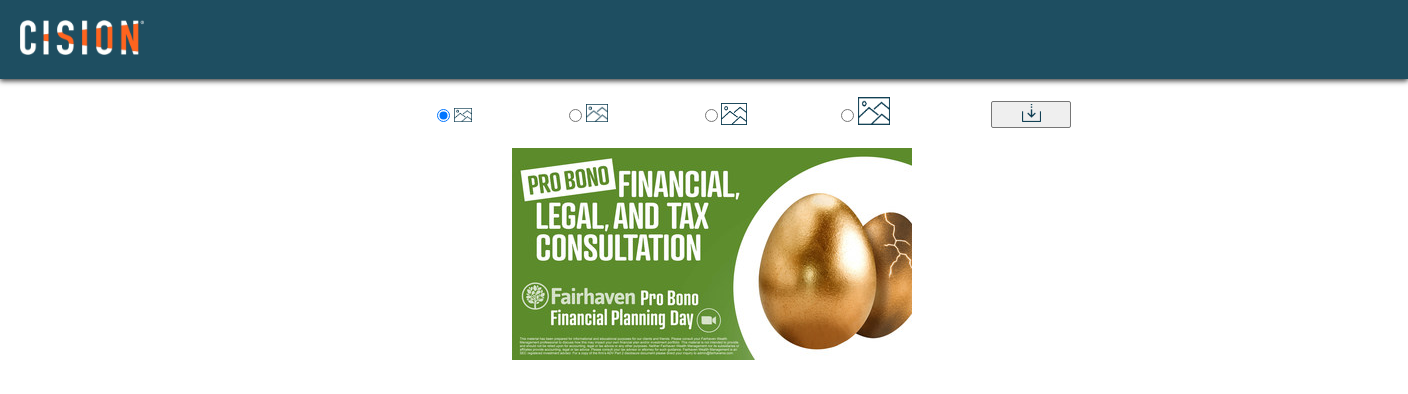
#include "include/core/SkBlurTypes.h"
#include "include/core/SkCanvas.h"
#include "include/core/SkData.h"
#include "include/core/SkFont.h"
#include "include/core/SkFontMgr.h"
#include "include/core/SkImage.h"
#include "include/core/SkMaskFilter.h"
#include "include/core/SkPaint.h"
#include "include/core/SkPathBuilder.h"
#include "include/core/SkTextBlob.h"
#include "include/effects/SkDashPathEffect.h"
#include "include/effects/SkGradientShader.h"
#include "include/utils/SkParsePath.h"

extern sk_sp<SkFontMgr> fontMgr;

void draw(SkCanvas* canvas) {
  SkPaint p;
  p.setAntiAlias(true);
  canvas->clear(SK_ColorWHITE);
  p.setColor(SkColorSetARGB(191, 0, 0, 0));
  p.setMaskFilter(SkMaskFilter::MakeBlur(kNormal_SkBlurStyle, 2.5f));
  canvas->drawRect(SkRect::MakeLTRB(0, 2, 1408, 81), p);
  p.setMaskFilter(nullptr);
  p.setColor(SkColorSetRGB(30, 78, 97));
  canvas->drawRect(SkRect::MakeLTRB(0, 0, 1408, 79), p);
  canvas->drawImageRect(SkImages::DeferredFromEncodedData(SkData::MakeFromFileName("images/1.png")), SkRect::MakeLTRB(20, 20, 144, 55), SkSamplingOptions());
  p.setStyle(SkPaint::kStroke_Style);
  p.setStrokeWidth(1);
  p.setColor(SkColorSetRGB(0, 117, 255));
  canvas->drawCircle(443.5f, 115.5f, 6, p);
  p.setStyle(SkPaint::kFill_Style);
  canvas->drawCircle(443.5f, 115.5f, 4, p);
  canvas->drawImageRect(SkImages::DeferredFromEncodedData(SkData::MakeFromFileName("images/2.png")), SkRect::MakeLTRB(454, 108, 472, 122), SkSamplingOptions());
  p.setStyle(SkPaint::kStroke_Style);
  p.setColor(SkColorSetRGB(118, 118, 118));
  canvas->drawCircle(575.5f, 115.5f, 6, p);
  canvas->drawImageRect(SkImages::DeferredFromEncodedData(SkData::MakeFromFileName("images/3.png")), SkRect::MakeLTRB(586, 104, 608, 122), SkSamplingOptions());
  canvas->drawCircle(711.5f, 115.5f, 6, p);
  canvas->drawImageRect(SkImages::DeferredFromEncodedData(SkData::MakeFromFileName("images/4.png")), SkRect::MakeLTRB(721, 103, 747, 125), SkSamplingOptions());
  canvas->drawCircle(847.5f, 115.5f, 6, p);
  canvas->drawImageRect(SkImages::DeferredFromEncodedData(SkData::MakeFromFileName("images/5.png")), SkRect::MakeLTRB(858, 97, 890, 125), SkSamplingOptions());
  p.setStyle(SkPaint::kFill_Style);
  p.setColor(SkColorSetRGB(239, 239, 239));
  canvas->drawRoundRect(SkRect::MakeLTRB(991.5f, 101.5f, 1070.5f, 127.5f), 1.5f, 1.5f, p);
  p.setStyle(SkPaint::kStroke_Style);
  p.setColor(SkColorSetRGB(118, 118, 118));
  canvas->drawRoundRect(SkRect::MakeLTRB(991.5f, 101.5f, 1070.5f, 127.5f), 1.5f, 1.5f, p);
  canvas->drawImageRect(SkImages::DeferredFromEncodedData(SkData::MakeFromFileName("images/6.png")), SkRect::MakeLTRB(1022, 104, 1041, 122), SkSamplingOptions());
  canvas->drawImageRect(SkImages::DeferredFromEncodedData(SkData::MakeFromFileName("images/7.png")), SkRect::MakeLTRB(512, 148, 912, 360), SkSamplingOptions());
}
